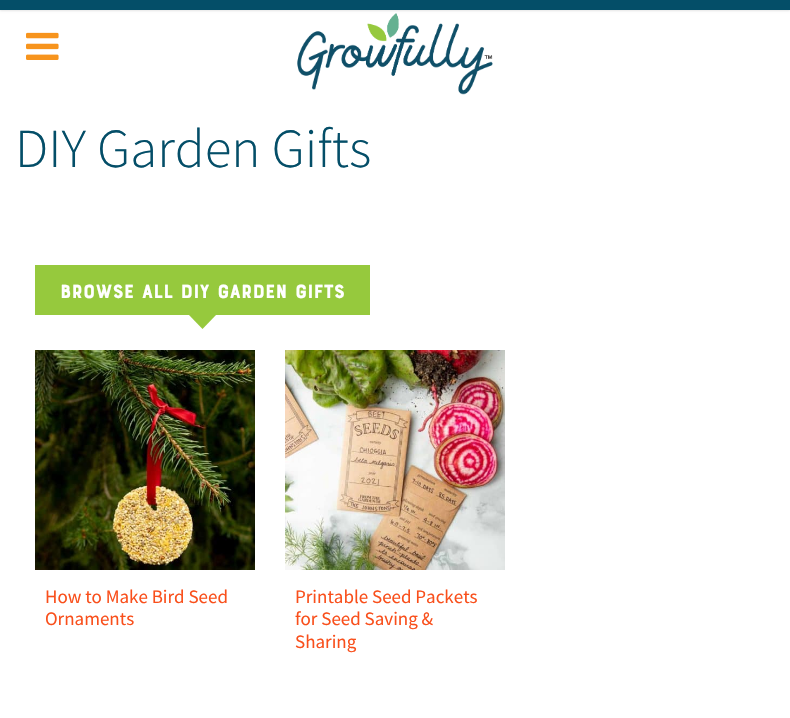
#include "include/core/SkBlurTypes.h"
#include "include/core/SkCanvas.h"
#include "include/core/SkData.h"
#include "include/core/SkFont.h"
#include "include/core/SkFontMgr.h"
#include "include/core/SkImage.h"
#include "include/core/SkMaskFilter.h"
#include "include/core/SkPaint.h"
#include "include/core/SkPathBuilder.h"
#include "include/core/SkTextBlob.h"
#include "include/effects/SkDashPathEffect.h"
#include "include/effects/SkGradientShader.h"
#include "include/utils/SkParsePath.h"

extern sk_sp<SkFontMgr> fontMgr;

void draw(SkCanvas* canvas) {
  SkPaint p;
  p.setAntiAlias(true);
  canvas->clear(SK_ColorWHITE);
  canvas->drawImageRect(SkImages::DeferredFromEncodedData(SkData::MakeFromFileName("images/2.png")), SkRect::MakeLTRB(297, 13, 493, 95), SkSamplingOptions());
  p.setColor(SkColorSetARGB(26, 0, 0, 0));
  p.setMaskFilter(SkMaskFilter::MakeBlur(kNormal_SkBlurStyle, 1));
  canvas->drawRect(SkRect::MakeLTRB(0, -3, 790, 11), p);
  p.setMaskFilter(nullptr);
  p.setColor(SkColorSetRGB(4, 78, 104));
  canvas->drawRect(SkRect::MakeLTRB(0, 0, 790, 10), p);
  canvas->drawImageRect(SkImages::DeferredFromEncodedData(SkData::MakeFromFileName("images/1.png")), SkRect::MakeLTRB(26, 32, 59, 60), SkSamplingOptions());
  p.setColor(SkColorSetRGB(150, 201, 61));
  canvas->drawRect(SkRect::MakeLTRB(35, 265, 370, 315), p);
  canvas->drawPath(SkPathBuilder().moveTo(202.5f, 300.5f).lineTo(216.5f, 314.5f).lineTo(202.5f, 329).lineTo(188.5f, 314.5f).close().detach(), p);
  canvas->drawImageRect(SkImages::DeferredFromEncodedData(SkData::MakeFromFileName("images/3.png")), SkRect::MakeLTRB(35, 350, 255, 570), SkSamplingOptions());
  canvas->drawImageRect(SkImages::DeferredFromEncodedData(SkData::MakeFromFileName("images/4.png")), SkRect::MakeLTRB(285, 350, 505, 570), SkSamplingOptions());
  SkFont font1(fontMgr->matchFamilyStyle("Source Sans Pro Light", SkFontStyle(300, SkFontStyle::kNormal_Width, SkFontStyle::kUpright_Slant)), 55);
  font1.setSubpixel(true);
  p.setColor(SkColorSetRGB(4, 78, 104));
  canvas->drawString("DIY Garden Gifts", 15, 167, font1, p);
  SkFont font2(fontMgr->matchFamilyStyle("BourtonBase", SkFontStyle::Normal()), 20);
  font2.setSubpixel(true);
  p.setColor(SK_ColorWHITE);
  canvas->drawString("Browse All DIY Garden Gifts", 60, 298, font2, p);
  SkFont font3(fontMgr->matchFamilyStyle("Source Sans Pro", SkFontStyle::Normal()), 19);
  font3.setSubpixel(true);
  p.setColor(SkColorSetRGB(249, 79, 27));
  canvas->drawString("How to Make Bird Seed", 45, 603, font3, p);
  canvas->drawString("Ornaments", 45, 625, font3, p);
  canvas->drawString("Printable Seed Packets", 295, 603, font3, p);
  canvas->drawString("for Seed Saving &", 295, 625, font3, p);
  canvas->drawString("Sharing", 295, 648, font3, p);
}
